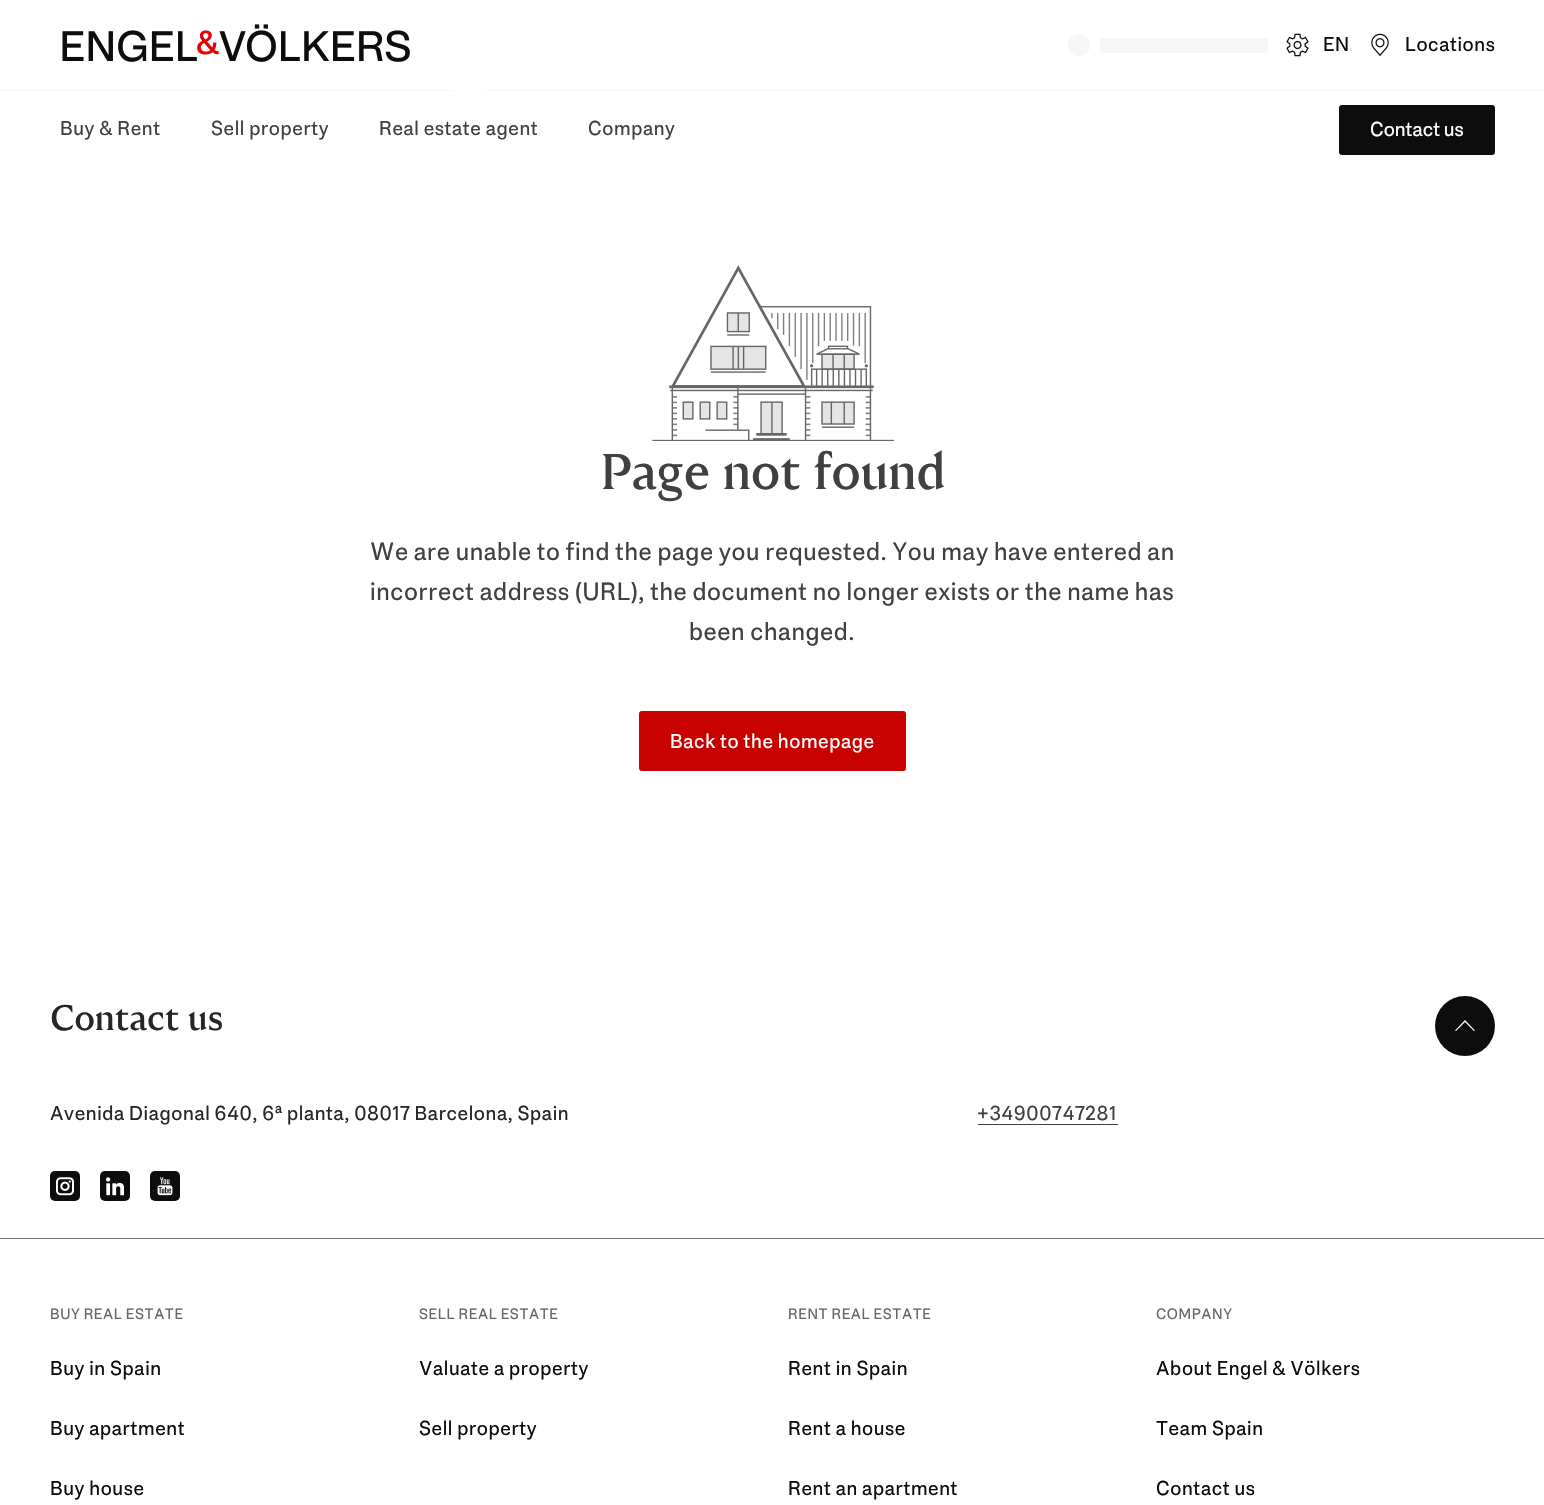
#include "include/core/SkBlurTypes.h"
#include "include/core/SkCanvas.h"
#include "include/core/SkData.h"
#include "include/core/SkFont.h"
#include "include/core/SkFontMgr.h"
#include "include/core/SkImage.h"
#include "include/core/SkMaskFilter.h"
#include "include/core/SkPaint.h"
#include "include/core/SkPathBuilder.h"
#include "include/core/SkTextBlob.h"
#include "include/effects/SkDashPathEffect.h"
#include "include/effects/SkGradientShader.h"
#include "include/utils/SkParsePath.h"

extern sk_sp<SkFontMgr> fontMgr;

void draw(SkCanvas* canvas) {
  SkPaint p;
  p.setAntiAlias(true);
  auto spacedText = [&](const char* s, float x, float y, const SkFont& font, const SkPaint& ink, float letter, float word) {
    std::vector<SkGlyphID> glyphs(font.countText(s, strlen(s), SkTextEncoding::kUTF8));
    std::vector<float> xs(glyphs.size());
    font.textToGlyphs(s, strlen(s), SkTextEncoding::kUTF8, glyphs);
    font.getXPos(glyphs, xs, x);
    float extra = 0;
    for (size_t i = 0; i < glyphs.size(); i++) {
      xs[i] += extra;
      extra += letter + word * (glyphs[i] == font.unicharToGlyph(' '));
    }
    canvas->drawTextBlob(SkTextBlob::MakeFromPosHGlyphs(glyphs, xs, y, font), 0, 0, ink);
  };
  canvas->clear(SK_ColorWHITE);
  p.setColor(SkColorSetRGB(246, 246, 244));
  canvas->drawRect(SkRect::MakeLTRB(0, 90, 454, 91), p);
  canvas->drawImageRect(SkImages::DeferredFromEncodedData(SkData::MakeFromFileName("images/1.png")), SkRect::MakeLTRB(62, 24, 410, 62), SkSamplingOptions());
  canvas->drawRect(SkRect::MakeLTRB(484, 90, 1544, 91), p);
  canvas->drawCircle(1079, 45, 11, p);
  canvas->drawRect(SkRect::MakeLTRB(1100, 38, 1268, 53), p);
  canvas->drawImageRect(SkImages::DeferredFromEncodedData(SkData::MakeFromFileName("images/2.png")), SkRect::MakeLTRB(1286, 33, 1309, 57), SkSamplingOptions());
  canvas->drawImageRect(SkImages::DeferredFromEncodedData(SkData::MakeFromFileName("images/3.png")), SkRect::MakeLTRB(1371, 33, 1389, 57), SkSamplingOptions());
  p.setColor(SkColorSetRGB(13, 13, 13));
  canvas->drawRoundRect(SkRect::MakeLTRB(1339.5f, 105.5f, 1494.5f, 154.5f), 2, 2, p);
  p.setStyle(SkPaint::kStroke_Style);
  p.setStrokeWidth(1);
  canvas->drawRoundRect(SkRect::MakeLTRB(1339.5f, 105.5f, 1494.5f, 154.5f), 2, 2, p);
  canvas->drawImageRect(SkImages::DeferredFromEncodedData(SkData::MakeFromFileName("images/4.png")), SkRect::MakeLTRB(652, 265, 894, 441), SkSamplingOptions());
  p.setStyle(SkPaint::kFill_Style);
  p.setColor(SkColorSetRGB(200, 0, 0));
  canvas->drawRoundRect(SkRect::MakeLTRB(639.5f, 711.5f, 905.5f, 770.5f), 2, 2, p);
  p.setStyle(SkPaint::kStroke_Style);
  canvas->drawRoundRect(SkRect::MakeLTRB(639.5f, 711.5f, 905.5f, 770.5f), 2, 2, p);
  p.setStyle(SkPaint::kFill_Style);
  p.setColor(SkColorSetRGB(118, 118, 118));
  canvas->drawRect(SkRect::MakeLTRB(0, 1238, 1544, 1239), p);
  p.setColor(SkColorSetRGB(13, 13, 13));
  canvas->drawCircle(1465, 1026, 30, p);
  p.setColor(SK_ColorWHITE);
  canvas->drawPath(SkPathBuilder(SkPathFillType::kEvenOdd).moveTo(1465, 1020).lineTo(1475, 1030.5f).lineTo(1474, 1031).lineTo(1465, 1022).lineTo(1456, 1031).lineTo(1455, 1030.5f).close().detach(), p);
  p.setColor(SkColorSetRGB(64, 64, 64));
  canvas->drawRect(SkRect::MakeLTRB(978, 1124, 1118, 1125), p);
  p.setColor(SkColorSetRGB(13, 13, 13));
  canvas->drawRoundRect(SkRect::MakeLTRB(50, 1171, 80, 1201), 5, 5, p);
  canvas->drawImageRect(SkImages::DeferredFromEncodedData(SkData::MakeFromFileName("images/5.png")), SkRect::MakeLTRB(56, 1177, 74, 1196), SkSamplingOptions());
  canvas->drawRoundRect(SkRect::MakeLTRB(100, 1171, 130, 1201), 5, 5, p);
  canvas->drawImageRect(SkImages::DeferredFromEncodedData(SkData::MakeFromFileName("images/6.png")), SkRect::MakeLTRB(106, 1177, 124, 1196), SkSamplingOptions());
  canvas->drawRoundRect(SkRect::MakeLTRB(150, 1171, 180, 1201), 5, 5, p);
  canvas->drawImageRect(SkImages::DeferredFromEncodedData(SkData::MakeFromFileName("images/7.png")), SkRect::MakeLTRB(157, 1177, 173, 1196), SkSamplingOptions());
  SkFont font1(fontMgr->matchFamilyStyle("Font", SkFontStyle::Normal()), 20);
  font1.setSubpixel(true);
  spacedText("EN", 1323, 51, font1, p, 0.6f, 0);
  spacedText("Locations", 1405, 51, font1, p, 0.6f, 0);
  p.setColor(SkColorSetRGB(64, 64, 64));
  spacedText("Buy & Rent", 60, 135, font1, p, 0.6f, 0);
  spacedText("Sell property", 211, 135, font1, p, 0.6f, 0);
  spacedText("Real estate agent", 379, 135, font1, p, 0.6f, 0);
  spacedText("Company", 588, 135, font1, p, 0.6f, 0);
  p.setColor(SK_ColorWHITE);
  canvas->drawString("Contact us", 1370, 136, font1, p);
  SkFont font2(fontMgr->matchFamilyStyle("Font", SkFontStyle::Bold()), 50);
  font2.setSubpixel(true);
  p.setColor(SkColorSetRGB(64, 64, 64));
  canvas->drawString("Page not found", 600, 489, font2, p);
  SkFont font3(fontMgr->matchFamilyStyle("Font", SkFontStyle::Normal()), 25);
  font3.setSubpixel(true);
  spacedText("We are unable to find the page you requested. You may have entered an", 370, 560, font3, p, 0.6f, 0);
  spacedText("incorrect address (URL), the document no longer exists or the name has", 370, 600, font3, p, 0.6f, 0);
  spacedText("been changed.", 689, 640, font3, p, 0.6f, 0);
  p.setColor(SK_ColorWHITE);
  spacedText("Back to the homepage", 670, 748, font1, p, 0.6f, 0);
  SkFont font4(fontMgr->matchFamilyStyle("Font", SkFontStyle::Bold()), 35);
  font4.setSubpixel(true);
  p.setColor(SkColorSetRGB(38, 38, 38));
  canvas->drawString("Contact us", 50, 1030, font4, p);
  spacedText("Avenida Diagonal 640, 6ª planta, 08017 Barcelona, Spain", 50, 1120, font1, p, 0.6f, 0);
  p.setColor(SkColorSetRGB(64, 64, 64));
  spacedText("+34900747281", 977, 1120, font1, p, 0.6f, 0);
  SkFont font5(fontMgr->matchFamilyStyle("Font", SkFontStyle::Normal()), 15);
  font5.setSubpixel(true);
  p.setColor(SkColorSetRGB(102, 102, 102));
  spacedText("BUY REAL ESTATE", 50, 1319, font5, p, 0.6f, 0);
  p.setColor(SkColorSetRGB(13, 13, 13));
  spacedText("Buy in Spain", 50, 1375, font1, p, 0.6f, 0);
  spacedText("Buy apartment", 50, 1435, font1, p, 0.6f, 0);
  spacedText("Buy house", 50, 1495, font1, p, 0.6f, 0);
  p.setColor(SkColorSetRGB(102, 102, 102));
  spacedText("SELL REAL ESTATE", 419, 1319, font5, p, 0.6f, 0);
  p.setColor(SkColorSetRGB(13, 13, 13));
  spacedText("Valuate a property", 419, 1375, font1, p, 0.6f, 0);
  spacedText("Sell property", 419, 1435, font1, p, 0.6f, 0);
  p.setColor(SkColorSetRGB(102, 102, 102));
  spacedText("RENT REAL ESTATE", 788, 1319, font5, p, 0.6f, 0);
  p.setColor(SkColorSetRGB(13, 13, 13));
  spacedText("Rent in Spain", 788, 1375, font1, p, 0.6f, 0);
  spacedText("Rent a house", 788, 1435, font1, p, 0.6f, 0);
  spacedText("Rent an apartment", 788, 1495, font1, p, 0.6f, 0);
  p.setColor(SkColorSetRGB(102, 102, 102));
  spacedText("COMPANY", 1156, 1319, font5, p, 0.6f, 0);
  p.setColor(SkColorSetRGB(13, 13, 13));
  spacedText("About Engel & Völkers", 1156, 1375, font1, p, 0.6f, 0);
  spacedText("Team Spain", 1156, 1435, font1, p, 0.6f, 0);
  spacedText("Contact us", 1156, 1495, font1, p, 0.6f, 0);
}
